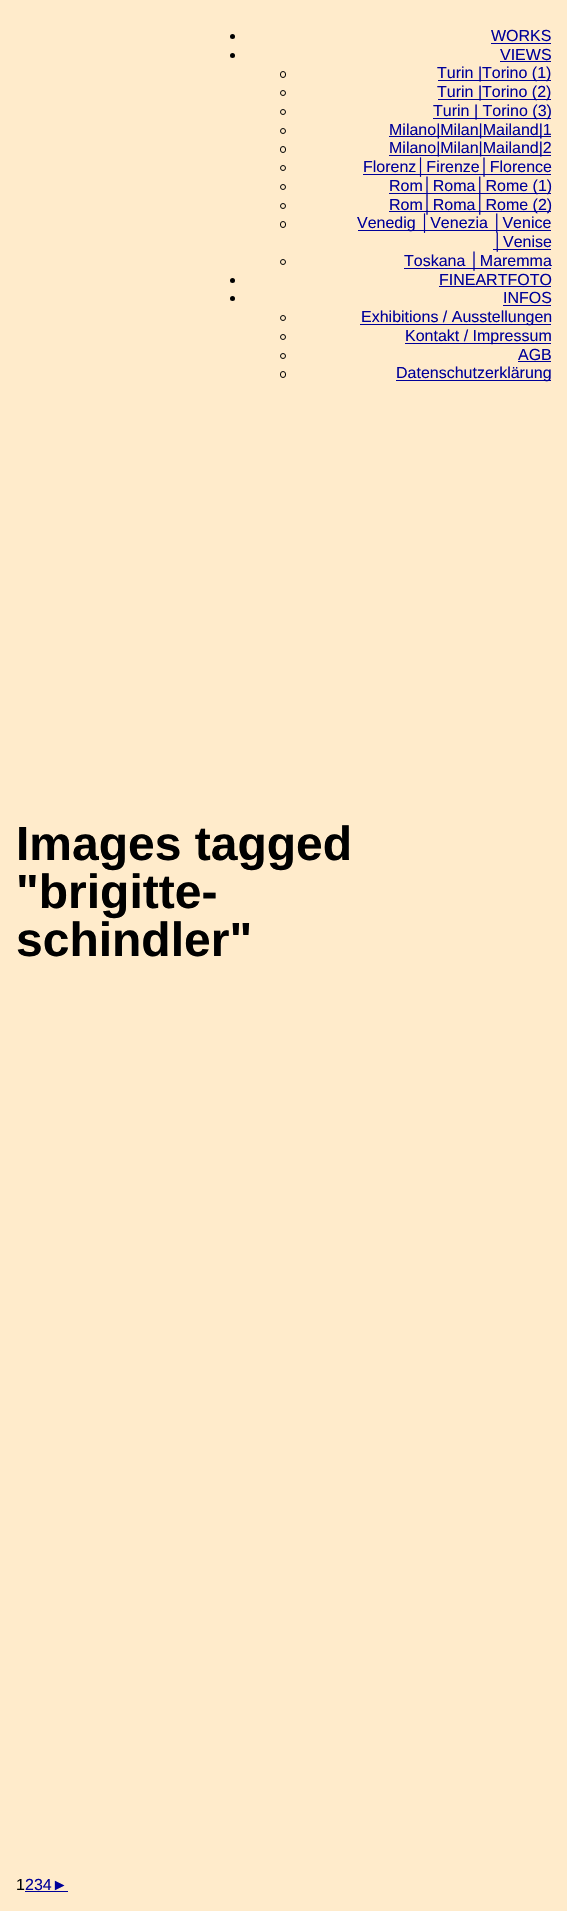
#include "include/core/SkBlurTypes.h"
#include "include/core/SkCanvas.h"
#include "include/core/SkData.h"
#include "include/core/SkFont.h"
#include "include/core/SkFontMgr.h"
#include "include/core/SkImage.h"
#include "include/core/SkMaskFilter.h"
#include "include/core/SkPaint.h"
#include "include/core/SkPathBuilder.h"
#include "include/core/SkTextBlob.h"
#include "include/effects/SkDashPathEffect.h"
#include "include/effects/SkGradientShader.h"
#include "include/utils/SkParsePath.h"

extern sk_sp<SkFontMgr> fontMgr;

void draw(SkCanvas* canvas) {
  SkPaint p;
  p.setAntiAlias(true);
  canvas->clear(SkColorSetRGB(255, 235, 203));
  p.setColor(SK_ColorBLACK);
  canvas->drawCircle(232.5f, 36.5f, 2.5f, p);
  p.setColor(SkColorSetRGB(0, 0, 153));
  canvas->drawRect(SkRect::MakeLTRB(491, 43, 551, 44), p);
  p.setColor(SK_ColorBLACK);
  canvas->drawCircle(232.5f, 55.5f, 2.5f, p);
  p.setColor(SkColorSetRGB(0, 0, 153));
  canvas->drawRect(SkRect::MakeLTRB(500, 61, 551, 62), p);
  p.setStyle(SkPaint::kStroke_Style);
  p.setStrokeWidth(1);
  p.setColor(SK_ColorBLACK);
  canvas->drawRoundRect(SkRect::MakeLTRB(280.5f, 71.5f, 285.5f, 77.5f), 2.5f, 2.5f, p);
  p.setStyle(SkPaint::kFill_Style);
  p.setColor(SkColorSetRGB(0, 0, 153));
  canvas->drawRect(SkRect::MakeLTRB(438, 80, 551, 81), p);
  p.setStyle(SkPaint::kStroke_Style);
  p.setColor(SK_ColorBLACK);
  canvas->drawCircle(283, 93, 2.5f, p);
  p.setStyle(SkPaint::kFill_Style);
  p.setColor(SkColorSetRGB(0, 0, 153));
  canvas->drawRect(SkRect::MakeLTRB(438, 99, 551, 100), p);
  p.setStyle(SkPaint::kStroke_Style);
  p.setColor(SK_ColorBLACK);
  canvas->drawCircle(283, 112, 2.5f, p);
  p.setStyle(SkPaint::kFill_Style);
  p.setColor(SkColorSetRGB(0, 0, 153));
  canvas->drawRect(SkRect::MakeLTRB(433, 118, 551, 119), p);
  p.setStyle(SkPaint::kStroke_Style);
  p.setColor(SK_ColorBLACK);
  canvas->drawCircle(283, 131, 2.5f, p);
  p.setStyle(SkPaint::kFill_Style);
  p.setColor(SkColorSetRGB(0, 0, 153));
  canvas->drawRect(SkRect::MakeLTRB(389, 136, 551, 137), p);
  p.setStyle(SkPaint::kStroke_Style);
  p.setColor(SK_ColorBLACK);
  canvas->drawRoundRect(SkRect::MakeLTRB(280.5f, 146.5f, 285.5f, 152.5f), 2.5f, 2.5f, p);
  p.setStyle(SkPaint::kFill_Style);
  p.setColor(SkColorSetRGB(0, 0, 153));
  canvas->drawRect(SkRect::MakeLTRB(389, 155, 551, 156), p);
  p.setStyle(SkPaint::kStroke_Style);
  p.setColor(SK_ColorBLACK);
  canvas->drawCircle(283, 168, 2.5f, p);
  p.setStyle(SkPaint::kFill_Style);
  p.setColor(SkColorSetRGB(0, 0, 153));
  canvas->drawRect(SkRect::MakeLTRB(363, 174, 551, 175), p);
  p.setStyle(SkPaint::kStroke_Style);
  p.setColor(SK_ColorBLACK);
  canvas->drawCircle(283, 187, 2.5f, p);
  p.setStyle(SkPaint::kFill_Style);
  p.setColor(SkColorSetRGB(0, 0, 153));
  canvas->drawRect(SkRect::MakeLTRB(389, 193, 551, 194), p);
  p.setStyle(SkPaint::kStroke_Style);
  p.setColor(SK_ColorBLACK);
  canvas->drawCircle(283, 206, 2.5f, p);
  p.setStyle(SkPaint::kFill_Style);
  p.setColor(SkColorSetRGB(0, 0, 153));
  canvas->drawRect(SkRect::MakeLTRB(389, 211, 551, 212), p);
  p.setStyle(SkPaint::kStroke_Style);
  p.setColor(SK_ColorBLACK);
  canvas->drawRoundRect(SkRect::MakeLTRB(280.5f, 221.5f, 285.5f, 227.5f), 2.5f, 2.5f, p);
  p.setStyle(SkPaint::kFill_Style);
  p.setColor(SkColorSetRGB(0, 0, 153));
  canvas->drawRect(SkRect::MakeLTRB(358, 230, 551, 231), p);
  canvas->drawRect(SkRect::MakeLTRB(493, 249, 551, 250), p);
  p.setStyle(SkPaint::kStroke_Style);
  p.setColor(SK_ColorBLACK);
  canvas->drawCircle(283, 262, 2.5f, p);
  p.setStyle(SkPaint::kFill_Style);
  p.setColor(SkColorSetRGB(0, 0, 153));
  canvas->drawRect(SkRect::MakeLTRB(404, 268, 551, 269), p);
  p.setColor(SK_ColorBLACK);
  canvas->drawCircle(232.5f, 280.5f, 2.5f, p);
  p.setColor(SkColorSetRGB(0, 0, 153));
  canvas->drawRect(SkRect::MakeLTRB(439, 286, 551, 287), p);
  p.setColor(SK_ColorBLACK);
  canvas->drawCircle(232.5f, 298.5f, 2.5f, p);
  p.setColor(SkColorSetRGB(0, 0, 153));
  canvas->drawRect(SkRect::MakeLTRB(503, 305, 551, 306), p);
  p.setStyle(SkPaint::kStroke_Style);
  p.setColor(SK_ColorBLACK);
  canvas->drawCircle(283, 318, 2.5f, p);
  p.setStyle(SkPaint::kFill_Style);
  p.setColor(SkColorSetRGB(0, 0, 153));
  canvas->drawRect(SkRect::MakeLTRB(360, 324, 551, 325), p);
  p.setStyle(SkPaint::kStroke_Style);
  p.setColor(SK_ColorBLACK);
  canvas->drawCircle(283, 337, 2.5f, p);
  p.setStyle(SkPaint::kFill_Style);
  p.setColor(SkColorSetRGB(0, 0, 153));
  canvas->drawRect(SkRect::MakeLTRB(405, 343, 551, 344), p);
  p.setStyle(SkPaint::kStroke_Style);
  p.setColor(SK_ColorBLACK);
  canvas->drawCircle(283, 356, 2.5f, p);
  p.setStyle(SkPaint::kFill_Style);
  p.setColor(SkColorSetRGB(0, 0, 153));
  canvas->drawRect(SkRect::MakeLTRB(518, 361, 551, 362), p);
  p.setStyle(SkPaint::kStroke_Style);
  p.setColor(SK_ColorBLACK);
  canvas->drawRoundRect(SkRect::MakeLTRB(280.5f, 371.5f, 285.5f, 377.5f), 2.5f, 2.5f, p);
  p.setStyle(SkPaint::kFill_Style);
  p.setColor(SkColorSetRGB(0, 0, 153));
  canvas->drawRect(SkRect::MakeLTRB(396, 380, 551, 381), p);
  canvas->drawRect(SkRect::MakeLTRB(25, 1891, 68, 1892), p);
  SkFont font1(fontMgr->matchFamilyStyle("Liberation Sans", SkFontStyle::Normal()), 16);
  font1.setSubpixel(true);
  canvas->drawString("WORKS", 491, 41, font1, p);
  canvas->drawString("VIEWS", 500, 60, font1, p);
  canvas->drawString("Turin |Torino (1)", 437, 78, font1, p);
  canvas->drawString("Turin |Torino (2)", 437, 97, font1, p);
  canvas->drawString("Turin | Torino (3)", 433, 116, font1, p);
  canvas->drawString("Milano|Milan|Mailand|1", 389, 135, font1, p);
  canvas->drawString("Milano|Milan|Mailand|2", 389, 153, font1, p);
  canvas->drawString("Florenz│Firenze│Florence", 363, 172, font1, p);
  canvas->drawString("Rom│Roma│Rome (1)", 389, 191, font1, p);
  canvas->drawString("Rom│Roma│Rome (2)", 389, 210, font1, p);
  canvas->drawString("Venedig │Venezia │Venice", 357, 228, font1, p);
  canvas->drawString("│Venise", 493, 247, font1, p);
  canvas->drawString("Toskana │Maremma", 404, 266, font1, p);
  canvas->drawString("FINEARTFOTO", 439, 285, font1, p);
  canvas->drawString("INFOS", 503, 303, font1, p);
  canvas->drawString("Exhibitions / Ausstellungen", 361, 322, font1, p);
  canvas->drawString("Kontakt / Impressum", 405, 341, font1, p);
  canvas->drawString("AGB", 518, 360, font1, p);
  canvas->drawString("Datenschutzerklärung", 396, 378, font1, p);
  SkFont font2(fontMgr->matchFamilyStyle("Liberation Sans", SkFontStyle::Bold()), 48);
  font2.setSubpixel(true);
  p.setColor(SK_ColorBLACK);
  canvas->drawString("Images tagged", 16, 860, font2, p);
  canvas->drawString("\"brigitte-", 16, 908, font2, p);
  canvas->drawString("schindler\"", 16, 956, font2, p);
  canvas->drawString("1", 16, 1890, font1, p);
  p.setColor(SkColorSetRGB(0, 0, 153));
  canvas->drawString("234►", 25, 1890, font1, p);
}
